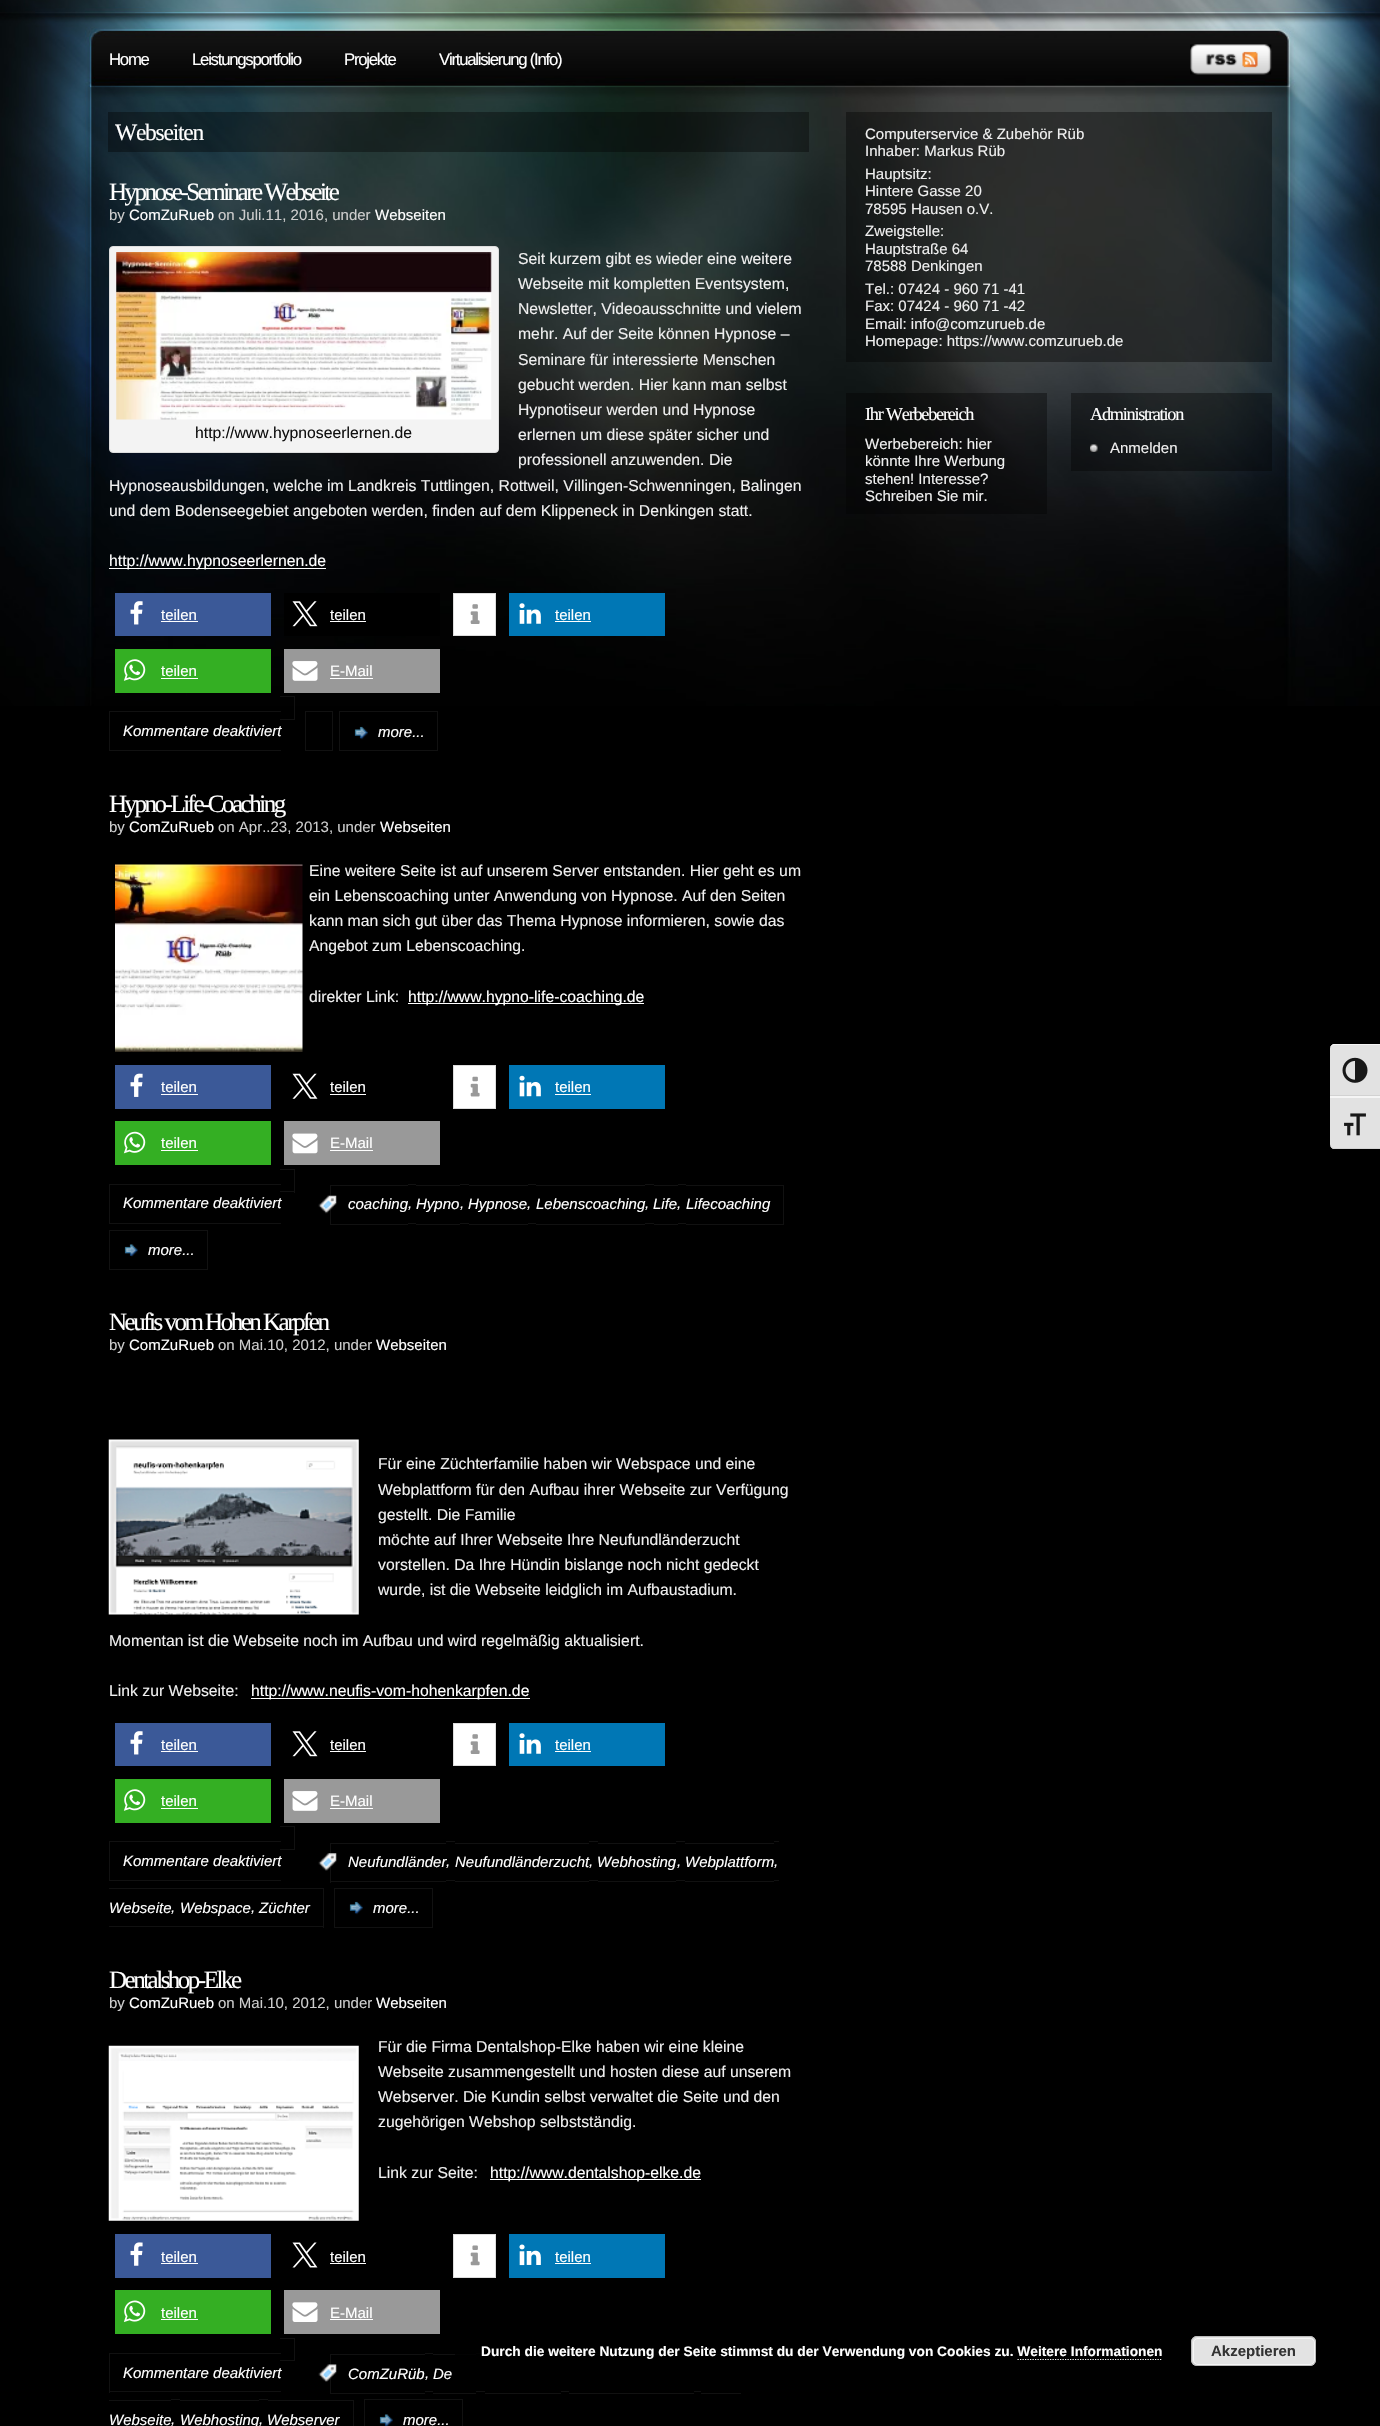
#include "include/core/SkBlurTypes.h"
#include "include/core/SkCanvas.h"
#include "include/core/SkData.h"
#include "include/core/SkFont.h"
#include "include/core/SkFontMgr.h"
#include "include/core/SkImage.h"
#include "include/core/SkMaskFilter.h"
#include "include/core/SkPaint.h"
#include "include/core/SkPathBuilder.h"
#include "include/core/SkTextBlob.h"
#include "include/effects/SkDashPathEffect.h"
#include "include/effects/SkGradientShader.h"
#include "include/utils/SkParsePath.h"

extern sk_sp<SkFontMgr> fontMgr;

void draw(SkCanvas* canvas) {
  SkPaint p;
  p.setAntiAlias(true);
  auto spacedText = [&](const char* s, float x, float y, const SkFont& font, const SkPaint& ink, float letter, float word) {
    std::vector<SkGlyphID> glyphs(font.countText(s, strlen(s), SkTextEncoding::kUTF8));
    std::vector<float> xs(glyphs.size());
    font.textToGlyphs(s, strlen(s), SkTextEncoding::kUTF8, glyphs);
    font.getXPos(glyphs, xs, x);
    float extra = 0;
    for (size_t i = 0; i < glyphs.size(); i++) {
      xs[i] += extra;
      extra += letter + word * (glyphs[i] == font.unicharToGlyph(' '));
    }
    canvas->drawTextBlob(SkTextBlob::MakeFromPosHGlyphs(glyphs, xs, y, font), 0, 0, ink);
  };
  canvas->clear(SK_ColorBLACK);
  canvas->drawImageRect(SkImages::DeferredFromEncodedData(SkData::MakeFromFileName("images/1.png")), SkRect::MakeLTRB(0, 0, 1380, 706), SkSamplingOptions());
  canvas->drawImageRect(SkImages::DeferredFromEncodedData(SkData::MakeFromFileName("images/2.png")), SkRect::MakeLTRB(1190, 44, 1272, 75), SkSamplingOptions());
  p.setColor(SkColorSetARGB(97, 0, 0, 0));
  canvas->drawRect(SkRect::MakeLTRB(108, 112, 809, 152), p);
  p.setColor(SkColorSetRGB(243, 243, 243));
  canvas->drawRoundRect(SkRect::MakeLTRB(109.5f, 246.5f, 498.5f, 452.5f), 3.5f, 3.5f, p);
  p.setStyle(SkPaint::kStroke_Style);
  p.setStrokeWidth(1);
  p.setColor(SkColorSetRGB(221, 221, 221));
  canvas->drawRoundRect(SkRect::MakeLTRB(109.5f, 246.5f, 498.5f, 452.5f), 3.5f, 3.5f, p);
  canvas->drawImageRect(SkImages::DeferredFromEncodedData(SkData::MakeFromFileName("images/3.png")), SkRect::MakeLTRB(116, 252, 492, 420), SkSamplingOptions());
  p.setStyle(SkPaint::kFill_Style);
  p.setColor(SK_ColorWHITE);
  canvas->drawRect(SkRect::MakeLTRB(109, 568, 326, 569), p);
  p.setColor(SkColorSetRGB(59, 89, 152));
  canvas->drawRect(SkRect::MakeLTRB(115, 593, 271, 636), p);
  canvas->drawImageRect(SkImages::DeferredFromEncodedData(SkData::MakeFromFileName("images/4.png")), SkRect::MakeLTRB(130, 601, 143, 625), SkSamplingOptions());
  p.setColor(SK_ColorWHITE);
  canvas->drawRect(SkRect::MakeLTRB(161, 621, 198, 622), p);
  p.setColor(SK_ColorBLACK);
  canvas->drawRect(SkRect::MakeLTRB(284, 593, 440, 636), p);
  canvas->drawImageRect(SkImages::DeferredFromEncodedData(SkData::MakeFromFileName("images/5.png")), SkRect::MakeLTRB(292, 601, 318, 627), SkSamplingOptions());
  p.setColor(SK_ColorWHITE);
  canvas->drawRect(SkRect::MakeLTRB(330, 621, 366, 622), p);
  canvas->drawRect(SkRect::MakeLTRB(453.5f, 593.5f, 495.5f, 635.5f), p);
  p.setStyle(SkPaint::kStroke_Style);
  p.setColor(SkColorSetRGB(221, 221, 221));
  canvas->drawRect(SkRect::MakeLTRB(453.5f, 593.5f, 495.5f, 635.5f), p);
  canvas->drawImageRect(SkImages::DeferredFromEncodedData(SkData::MakeFromFileName("images/6.png")), SkRect::MakeLTRB(470, 604, 480, 624), SkSamplingOptions());
  p.setStyle(SkPaint::kFill_Style);
  p.setColor(SkColorSetRGB(0, 119, 181));
  canvas->drawRect(SkRect::MakeLTRB(509, 593, 665, 636), p);
  canvas->drawImageRect(SkImages::DeferredFromEncodedData(SkData::MakeFromFileName("images/7.png")), SkRect::MakeLTRB(519, 603, 541, 624), SkSamplingOptions());
  p.setColor(SK_ColorWHITE);
  canvas->drawRect(SkRect::MakeLTRB(555, 621, 591, 622), p);
  p.setColor(SkColorSetRGB(52, 175, 35));
  canvas->drawRect(SkRect::MakeLTRB(115, 649, 271, 693), p);
  canvas->drawImageRect(SkImages::DeferredFromEncodedData(SkData::MakeFromFileName("images/8.png")), SkRect::MakeLTRB(123, 659, 146, 681), SkSamplingOptions());
  p.setColor(SK_ColorWHITE);
  canvas->drawRect(SkRect::MakeLTRB(161, 678, 198, 679), p);
  p.setColor(SkColorSetRGB(153, 153, 153));
  canvas->drawRect(SkRect::MakeLTRB(284, 649, 440, 693), p);
  canvas->drawImageRect(SkImages::DeferredFromEncodedData(SkData::MakeFromFileName("images/9.png")), SkRect::MakeLTRB(292, 661, 318, 681), SkSamplingOptions());
  p.setColor(SK_ColorWHITE);
  canvas->drawRect(SkRect::MakeLTRB(330, 678, 373, 679), p);
  p.setColor(SkColorSetRGB(17, 17, 17));
  canvas->drawRect(SkRect::MakeLTRB(109, 711, 281, 712), p);
  canvas->drawRect(SkRect::MakeLTRB(109, 750, 281, 751), p);
  canvas->drawRect(SkRect::MakeLTRB(109, 711, 110, 751), p);
  canvas->drawRect(SkRect::MakeLTRB(280, 696, 295, 697), p);
  canvas->drawRect(SkRect::MakeLTRB(294, 696, 295, 720), p);
  canvas->drawRect(SkRect::MakeLTRB(280, 719, 295, 720), p);
  p.setStyle(SkPaint::kStroke_Style);
  canvas->drawRect(SkRect::MakeLTRB(305.5f, 711.5f, 332.5f, 750.5f), p);
  canvas->drawRect(SkRect::MakeLTRB(339.5f, 711.5f, 437.5f, 750.5f), p);
  canvas->drawImageRect(SkImages::DeferredFromEncodedData(SkData::MakeFromFileName("images/10.png")), SkRect::MakeLTRB(354, 726, 368, 740), SkSamplingOptions());
  canvas->drawImageRect(SkImages::DeferredFromEncodedData(SkData::MakeFromFileName("images/11.png")), SkRect::MakeLTRB(115, 864, 303, 1052), SkSamplingOptions());
  p.setStyle(SkPaint::kFill_Style);
  p.setColor(SK_ColorWHITE);
  canvas->drawRect(SkRect::MakeLTRB(408, 1003, 644, 1004), p);
  p.setColor(SkColorSetRGB(59, 89, 152));
  canvas->drawRect(SkRect::MakeLTRB(115, 1065, 271, 1109), p);
  canvas->drawImageRect(SkImages::DeferredFromEncodedData(SkData::MakeFromFileName("images/12.png")), SkRect::MakeLTRB(130, 1073, 143, 1097), SkSamplingOptions());
  p.setColor(SK_ColorWHITE);
  canvas->drawRect(SkRect::MakeLTRB(161, 1094, 198, 1095), p);
  canvas->drawImageRect(SkImages::DeferredFromEncodedData(SkData::MakeFromFileName("images/13.png")), SkRect::MakeLTRB(292, 1073, 318, 1099), SkSamplingOptions());
  canvas->drawRect(SkRect::MakeLTRB(330, 1094, 366, 1095), p);
  canvas->drawRect(SkRect::MakeLTRB(453.5f, 1065.5f, 495.5f, 1108.5f), p);
  p.setStyle(SkPaint::kStroke_Style);
  p.setColor(SkColorSetRGB(221, 221, 221));
  canvas->drawRect(SkRect::MakeLTRB(453.5f, 1065.5f, 495.5f, 1108.5f), p);
  canvas->drawImageRect(SkImages::DeferredFromEncodedData(SkData::MakeFromFileName("images/14.png")), SkRect::MakeLTRB(470, 1076, 480, 1097), SkSamplingOptions());
  p.setStyle(SkPaint::kFill_Style);
  p.setColor(SkColorSetRGB(0, 119, 181));
  canvas->drawRect(SkRect::MakeLTRB(509, 1065, 665, 1109), p);
  canvas->drawImageRect(SkImages::DeferredFromEncodedData(SkData::MakeFromFileName("images/15.png")), SkRect::MakeLTRB(519, 1075, 541, 1097), SkSamplingOptions());
  p.setColor(SK_ColorWHITE);
  canvas->drawRect(SkRect::MakeLTRB(555, 1094, 591, 1095), p);
  p.setColor(SkColorSetRGB(52, 175, 35));
  canvas->drawRect(SkRect::MakeLTRB(115, 1121, 271, 1165), p);
  canvas->drawImageRect(SkImages::DeferredFromEncodedData(SkData::MakeFromFileName("images/16.png")), SkRect::MakeLTRB(123, 1131, 146, 1154), SkSamplingOptions());
  p.setColor(SK_ColorWHITE);
  canvas->drawRect(SkRect::MakeLTRB(161, 1150, 198, 1151), p);
  p.setColor(SkColorSetRGB(153, 153, 153));
  canvas->drawRect(SkRect::MakeLTRB(284, 1121, 440, 1165), p);
  canvas->drawImageRect(SkImages::DeferredFromEncodedData(SkData::MakeFromFileName("images/17.png")), SkRect::MakeLTRB(292, 1133, 318, 1154), SkSamplingOptions());
  p.setColor(SK_ColorWHITE);
  canvas->drawRect(SkRect::MakeLTRB(330, 1150, 373, 1151), p);
  p.setColor(SkColorSetRGB(17, 17, 17));
  canvas->drawRect(SkRect::MakeLTRB(109, 1184, 281, 1185), p);
  canvas->drawRect(SkRect::MakeLTRB(109, 1223, 281, 1224), p);
  canvas->drawRect(SkRect::MakeLTRB(109, 1184, 110, 1224), p);
  canvas->drawRect(SkRect::MakeLTRB(280, 1169, 295, 1170), p);
  canvas->drawRect(SkRect::MakeLTRB(294, 1169, 295, 1193), p);
  canvas->drawRect(SkRect::MakeLTRB(280, 1191, 295, 1192), p);
  canvas->drawRect(SkRect::MakeLTRB(330, 1185, 408, 1186), p);
  canvas->drawRect(SkRect::MakeLTRB(330, 1224, 408, 1225), p);
  canvas->drawRect(SkRect::MakeLTRB(330, 1185, 331, 1225), p);
  canvas->drawImageRect(SkImages::DeferredFromEncodedData(SkData::MakeFromFileName("images/18.png")), SkRect::MakeLTRB(318, 1195, 337, 1214), SkSamplingOptions());
  canvas->drawRect(SkRect::MakeLTRB(408, 1184, 416, 1185), p);
  canvas->drawRect(SkRect::MakeLTRB(408, 1223, 416, 1224), p);
  canvas->drawRect(SkRect::MakeLTRB(416, 1185, 460, 1186), p);
  canvas->drawRect(SkRect::MakeLTRB(460, 1184, 469, 1185), p);
  canvas->drawRect(SkRect::MakeLTRB(416, 1224, 460, 1225), p);
  canvas->drawRect(SkRect::MakeLTRB(460, 1223, 469, 1224), p);
  canvas->drawRect(SkRect::MakeLTRB(469, 1185, 528, 1186), p);
  canvas->drawRect(SkRect::MakeLTRB(469, 1224, 528, 1225), p);
  canvas->drawRect(SkRect::MakeLTRB(528, 1223, 536, 1224), p);
  canvas->drawRect(SkRect::MakeLTRB(528, 1184, 536, 1185), p);
  canvas->drawRect(SkRect::MakeLTRB(536, 1185, 645, 1186), p);
  canvas->drawRect(SkRect::MakeLTRB(536, 1224, 645, 1225), p);
  canvas->drawRect(SkRect::MakeLTRB(645, 1223, 654, 1224), p);
  canvas->drawRect(SkRect::MakeLTRB(645, 1184, 654, 1185), p);
  canvas->drawRect(SkRect::MakeLTRB(654, 1185, 678, 1186), p);
  canvas->drawRect(SkRect::MakeLTRB(678, 1184, 686, 1185), p);
  canvas->drawRect(SkRect::MakeLTRB(654, 1224, 678, 1225), p);
  canvas->drawRect(SkRect::MakeLTRB(678, 1223, 686, 1224), p);
  canvas->drawRect(SkRect::MakeLTRB(686, 1185, 784, 1186), p);
  canvas->drawRect(SkRect::MakeLTRB(783, 1185, 784, 1225), p);
  canvas->drawRect(SkRect::MakeLTRB(686, 1224, 784, 1225), p);
  p.setStyle(SkPaint::kStroke_Style);
  canvas->drawRect(SkRect::MakeLTRB(109.5f, 1230.5f, 207.5f, 1269.5f), p);
  canvas->drawImageRect(SkImages::DeferredFromEncodedData(SkData::MakeFromFileName("images/19.png")), SkRect::MakeLTRB(124, 1244, 138, 1257), SkSamplingOptions());
  canvas->drawImageRect(SkImages::DeferredFromEncodedData(SkData::MakeFromFileName("images/20.png")), SkRect::MakeLTRB(108, 1439, 359, 1615), SkSamplingOptions());
  p.setStyle(SkPaint::kFill_Style);
  p.setColor(SK_ColorWHITE);
  canvas->drawRect(SkRect::MakeLTRB(251, 1698, 530, 1699), p);
  p.setColor(SkColorSetRGB(59, 89, 152));
  canvas->drawRect(SkRect::MakeLTRB(115, 1723, 271, 1766), p);
  canvas->drawImageRect(SkImages::DeferredFromEncodedData(SkData::MakeFromFileName("images/4.png")), SkRect::MakeLTRB(130, 1731, 143, 1755), SkSamplingOptions());
  p.setColor(SK_ColorWHITE);
  canvas->drawRect(SkRect::MakeLTRB(161, 1751, 198, 1752), p);
  canvas->drawImageRect(SkImages::DeferredFromEncodedData(SkData::MakeFromFileName("images/5.png")), SkRect::MakeLTRB(292, 1731, 318, 1757), SkSamplingOptions());
  canvas->drawRect(SkRect::MakeLTRB(330, 1751, 366, 1752), p);
  canvas->drawRect(SkRect::MakeLTRB(453.5f, 1723.5f, 495.5f, 1765.5f), p);
  p.setStyle(SkPaint::kStroke_Style);
  p.setColor(SkColorSetRGB(221, 221, 221));
  canvas->drawRect(SkRect::MakeLTRB(453.5f, 1723.5f, 495.5f, 1765.5f), p);
  canvas->drawImageRect(SkImages::DeferredFromEncodedData(SkData::MakeFromFileName("images/6.png")), SkRect::MakeLTRB(470, 1734, 480, 1754), SkSamplingOptions());
  p.setStyle(SkPaint::kFill_Style);
  p.setColor(SkColorSetRGB(0, 119, 181));
  canvas->drawRect(SkRect::MakeLTRB(509, 1723, 665, 1766), p);
  canvas->drawImageRect(SkImages::DeferredFromEncodedData(SkData::MakeFromFileName("images/7.png")), SkRect::MakeLTRB(519, 1733, 541, 1754), SkSamplingOptions());
  p.setColor(SK_ColorWHITE);
  canvas->drawRect(SkRect::MakeLTRB(555, 1751, 591, 1752), p);
  p.setColor(SkColorSetRGB(52, 175, 35));
  canvas->drawRect(SkRect::MakeLTRB(115, 1779, 271, 1823), p);
  canvas->drawImageRect(SkImages::DeferredFromEncodedData(SkData::MakeFromFileName("images/8.png")), SkRect::MakeLTRB(123, 1789, 146, 1811), SkSamplingOptions());
  p.setColor(SK_ColorWHITE);
  canvas->drawRect(SkRect::MakeLTRB(161, 1808, 198, 1809), p);
  p.setColor(SkColorSetRGB(153, 153, 153));
  canvas->drawRect(SkRect::MakeLTRB(284, 1779, 440, 1823), p);
  canvas->drawImageRect(SkImages::DeferredFromEncodedData(SkData::MakeFromFileName("images/9.png")), SkRect::MakeLTRB(292, 1791, 318, 1811), SkSamplingOptions());
  p.setColor(SK_ColorWHITE);
  canvas->drawRect(SkRect::MakeLTRB(330, 1808, 373, 1809), p);
  p.setColor(SkColorSetRGB(17, 17, 17));
  canvas->drawRect(SkRect::MakeLTRB(109, 1841, 281, 1842), p);
  canvas->drawRect(SkRect::MakeLTRB(109, 1880, 281, 1881), p);
  canvas->drawRect(SkRect::MakeLTRB(109, 1841, 110, 1881), p);
  canvas->drawRect(SkRect::MakeLTRB(280, 1826, 295, 1827), p);
  canvas->drawRect(SkRect::MakeLTRB(294, 1826, 295, 1850), p);
  canvas->drawRect(SkRect::MakeLTRB(280, 1849, 295, 1850), p);
  canvas->drawRect(SkRect::MakeLTRB(330, 1843, 446, 1844), p);
  canvas->drawRect(SkRect::MakeLTRB(330, 1881, 446, 1882), p);
  canvas->drawRect(SkRect::MakeLTRB(330, 1843, 331, 1883), p);
  canvas->drawImageRect(SkImages::DeferredFromEncodedData(SkData::MakeFromFileName("images/21.png")), SkRect::MakeLTRB(318, 1853, 337, 1871), SkSamplingOptions());
  canvas->drawRect(SkRect::MakeLTRB(446, 1841, 455, 1842), p);
  canvas->drawRect(SkRect::MakeLTRB(446, 1880, 455, 1881), p);
  canvas->drawRect(SkRect::MakeLTRB(455, 1843, 589, 1844), p);
  canvas->drawRect(SkRect::MakeLTRB(589, 1841, 598, 1842), p);
  canvas->drawRect(SkRect::MakeLTRB(455, 1881, 589, 1882), p);
  canvas->drawRect(SkRect::MakeLTRB(589, 1880, 598, 1881), p);
  canvas->drawRect(SkRect::MakeLTRB(598, 1843, 676, 1844), p);
  canvas->drawRect(SkRect::MakeLTRB(676, 1841, 685, 1842), p);
  canvas->drawRect(SkRect::MakeLTRB(598, 1881, 676, 1882), p);
  canvas->drawRect(SkRect::MakeLTRB(676, 1880, 685, 1881), p);
  canvas->drawRect(SkRect::MakeLTRB(685, 1843, 774, 1844), p);
  canvas->drawRect(SkRect::MakeLTRB(774, 1841, 779, 1842), p);
  canvas->drawRect(SkRect::MakeLTRB(685, 1881, 774, 1882), p);
  canvas->drawRect(SkRect::MakeLTRB(774, 1880, 779, 1881), p);
  canvas->drawRect(SkRect::MakeLTRB(109, 1888, 324, 1889), p);
  canvas->drawRect(SkRect::MakeLTRB(109, 1926, 259, 1927), p);
  canvas->drawRect(SkRect::MakeLTRB(323, 1888, 324, 1928), p);
  canvas->drawRect(SkRect::MakeLTRB(259, 1926, 324, 1927), p);
  p.setStyle(SkPaint::kStroke_Style);
  canvas->drawRect(SkRect::MakeLTRB(334.5f, 1888.5f, 432.5f, 1927.5f), p);
  canvas->drawImageRect(SkImages::DeferredFromEncodedData(SkData::MakeFromFileName("images/10.png")), SkRect::MakeLTRB(349, 1901, 363, 1915), SkSamplingOptions());
  canvas->drawImageRect(SkImages::DeferredFromEncodedData(SkData::MakeFromFileName("images/22.png")), SkRect::MakeLTRB(108, 2045, 359, 2221), SkSamplingOptions());
  p.setStyle(SkPaint::kFill_Style);
  p.setColor(SK_ColorWHITE);
  canvas->drawRect(SkRect::MakeLTRB(490, 2179, 701, 2180), p);
  p.setColor(SkColorSetRGB(59, 89, 152));
  canvas->drawRect(SkRect::MakeLTRB(115, 2234, 271, 2278), p);
  canvas->drawImageRect(SkImages::DeferredFromEncodedData(SkData::MakeFromFileName("images/23.png")), SkRect::MakeLTRB(130, 2242, 143, 2266), SkSamplingOptions());
  p.setColor(SK_ColorWHITE);
  canvas->drawRect(SkRect::MakeLTRB(161, 2263, 198, 2264), p);
  canvas->drawImageRect(SkImages::DeferredFromEncodedData(SkData::MakeFromFileName("images/24.png")), SkRect::MakeLTRB(292, 2242, 318, 2268), SkSamplingOptions());
  canvas->drawRect(SkRect::MakeLTRB(330, 2263, 366, 2264), p);
  canvas->drawRect(SkRect::MakeLTRB(453.5f, 2234.5f, 495.5f, 2277.5f), p);
  p.setStyle(SkPaint::kStroke_Style);
  p.setColor(SkColorSetRGB(221, 221, 221));
  canvas->drawRect(SkRect::MakeLTRB(453.5f, 2234.5f, 495.5f, 2277.5f), p);
  canvas->drawImageRect(SkImages::DeferredFromEncodedData(SkData::MakeFromFileName("images/25.png")), SkRect::MakeLTRB(470, 2245, 480, 2266), SkSamplingOptions());
  p.setStyle(SkPaint::kFill_Style);
  p.setColor(SkColorSetRGB(0, 119, 181));
  canvas->drawRect(SkRect::MakeLTRB(509, 2234, 665, 2278), p);
  canvas->drawImageRect(SkImages::DeferredFromEncodedData(SkData::MakeFromFileName("images/26.png")), SkRect::MakeLTRB(519, 2244, 541, 2266), SkSamplingOptions());
  p.setColor(SK_ColorWHITE);
  canvas->drawRect(SkRect::MakeLTRB(555, 2263, 591, 2264), p);
  p.setColor(SkColorSetRGB(52, 175, 35));
  canvas->drawRect(SkRect::MakeLTRB(115, 2290, 271, 2334), p);
  canvas->drawImageRect(SkImages::DeferredFromEncodedData(SkData::MakeFromFileName("images/27.png")), SkRect::MakeLTRB(123, 2300, 146, 2322), SkSamplingOptions());
  p.setColor(SK_ColorWHITE);
  canvas->drawRect(SkRect::MakeLTRB(161, 2319, 198, 2320), p);
  p.setColor(SkColorSetRGB(153, 153, 153));
  canvas->drawRect(SkRect::MakeLTRB(284, 2290, 440, 2334), p);
  canvas->drawImageRect(SkImages::DeferredFromEncodedData(SkData::MakeFromFileName("images/28.png")), SkRect::MakeLTRB(292, 2302, 318, 2322), SkSamplingOptions());
  p.setColor(SK_ColorWHITE);
  canvas->drawRect(SkRect::MakeLTRB(330, 2319, 373, 2320), p);
  p.setColor(SkColorSetRGB(17, 17, 17));
  canvas->drawRect(SkRect::MakeLTRB(109, 2353, 281, 2354), p);
  canvas->drawRect(SkRect::MakeLTRB(109, 2391, 281, 2392), p);
  canvas->drawRect(SkRect::MakeLTRB(109, 2353, 110, 2393), p);
  canvas->drawRect(SkRect::MakeLTRB(280, 2338, 295, 2339), p);
  canvas->drawRect(SkRect::MakeLTRB(294, 2338, 295, 2361), p);
  canvas->drawRect(SkRect::MakeLTRB(280, 2360, 295, 2361), p);
  canvas->drawRect(SkRect::MakeLTRB(330, 2354, 425, 2355), p);
  canvas->drawRect(SkRect::MakeLTRB(330, 2393, 425, 2394), p);
  canvas->drawRect(SkRect::MakeLTRB(330, 2354, 331, 2394), p);
  canvas->drawImageRect(SkImages::DeferredFromEncodedData(SkData::MakeFromFileName("images/29.png")), SkRect::MakeLTRB(318, 2364, 337, 2382), SkSamplingOptions());
  canvas->drawRect(SkRect::MakeLTRB(425, 2353, 433, 2354), p);
  canvas->drawRect(SkRect::MakeLTRB(425, 2391, 433, 2392), p);
  canvas->drawRect(SkRect::MakeLTRB(433, 2393, 476, 2394), p);
  canvas->drawRect(SkRect::MakeLTRB(433, 2354, 476, 2355), p);
  canvas->drawRect(SkRect::MakeLTRB(476, 2353, 485, 2354), p);
  canvas->drawRect(SkRect::MakeLTRB(476, 2391, 485, 2392), p);
  canvas->drawRect(SkRect::MakeLTRB(485, 2354, 561, 2355), p);
  canvas->drawRect(SkRect::MakeLTRB(485, 2393, 561, 2394), p);
  canvas->drawRect(SkRect::MakeLTRB(561, 2353, 569, 2354), p);
  canvas->drawRect(SkRect::MakeLTRB(561, 2391, 569, 2392), p);
  canvas->drawRect(SkRect::MakeLTRB(569, 2354, 694, 2355), p);
  canvas->drawRect(SkRect::MakeLTRB(569, 2393, 694, 2394), p);
  canvas->drawRect(SkRect::MakeLTRB(694, 2353, 701, 2354), p);
  canvas->drawRect(SkRect::MakeLTRB(694, 2391, 701, 2392), p);
  canvas->drawRect(SkRect::MakeLTRB(701, 2354, 741, 2355), p);
  canvas->drawRect(SkRect::MakeLTRB(701, 2393, 741, 2394), p);
  canvas->drawRect(SkRect::MakeLTRB(109, 2400, 171, 2401), p);
  canvas->drawRect(SkRect::MakeLTRB(171, 2399, 180, 2400), p);
  canvas->drawRect(SkRect::MakeLTRB(180, 2400, 259, 2401), p);
  canvas->drawRect(SkRect::MakeLTRB(259, 2399, 268, 2400), p);
  canvas->drawRect(SkRect::MakeLTRB(268, 2400, 354, 2401), p);
  canvas->drawRect(SkRect::MakeLTRB(353, 2400, 354, 2426), p);
  p.setStyle(SkPaint::kStroke_Style);
  canvas->drawRect(SkRect::MakeLTRB(364.5f, 2399.5f, 462.5f, 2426.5f), p);
  canvas->drawImageRect(SkImages::DeferredFromEncodedData(SkData::MakeFromFileName("images/30.png")), SkRect::MakeLTRB(379, 2414, 393, 2426), SkSamplingOptions());
  p.setStyle(SkPaint::kFill_Style);
  p.setColor(SkColorSetARGB(97, 0, 0, 0));
  canvas->drawRect(SkRect::MakeLTRB(846, 112, 1272, 362), p);
  canvas->drawRect(SkRect::MakeLTRB(846, 393, 1047, 514), p);
  canvas->drawRect(SkRect::MakeLTRB(1071, 393, 1272, 471), p);
  canvas->drawImageRect(SkImages::DeferredFromEncodedData(SkData::MakeFromFileName("images/31.png")), SkRect::MakeLTRB(1090, 444, 1098, 452), SkSamplingOptions());
  p.setColor(SkColorSetARGB(217, 0, 0, 0));
  canvas->drawRoundRect(SkRect::MakeLTRB(455, 2314, 1343, 2389), 6, 6, p);
  p.setColor(SkColorSetRGB(227, 227, 227));
  canvas->drawRoundRect(SkRect::MakeLTRB(1191, 2336, 1316, 2366), 6, 6, p);
  p.setStyle(SkPaint::kStroke_Style);
  p.setColor(SkColorSetRGB(246, 246, 246));
  canvas->drawRoundRect(SkRect::MakeLTRB(1193.5f, 2338.5f, 1314.5f, 2364.5f), 4.5f, 4.5f, p);
  p.setColor(SkColorSetRGB(187, 187, 187));
  canvas->drawRoundRect(SkRect::MakeLTRB(1191.5f, 2336.5f, 1315.5f, 2365.5f), 5.5f, 5.5f, p);
  p.setStrokeWidth(1.2f);
  p.setColor(SK_ColorWHITE);
  p.setPathEffect(SkDashPathEffect::Make({{1.25f, 1.25f}}, 0));
  canvas->drawPath(SkPathBuilder().moveTo(1017.5f, 2359.5f).lineTo(1162.5f, 2359.5f).detach(), p);
  p.setPathEffect(nullptr);
  p.setStyle(SkPaint::kFill_Style);
  p.setColor(SkColorSetRGB(226, 226, 226));
  canvas->drawPath(SkPathBuilder().moveTo(1335, 1044).lineTo(1380, 1044).lineTo(1380, 1096).lineTo(1330, 1096).lineTo(1330, 1049).cubicTo(1330, 1046, 1332, 1044, 1335, 1044).close().detach(), p);
  p.setColor(SkColorSetRGB(245, 245, 245));
  canvas->drawPath(SkPathBuilder().moveTo(1335, 1044).lineTo(1380, 1044).lineTo(1380, 1045).lineTo(1335, 1045).cubicTo(1332, 1045, 1330, 1047, 1330, 1049).cubicTo(1330, 1046, 1332, 1044, 1335, 1044).close().detach(), p);
  p.setColor(SkColorSetRGB(210, 210, 210));
  canvas->drawRect(SkRect::MakeLTRB(1330, 1095, 1380, 1096), p);
  canvas->drawImageRect(SkImages::DeferredFromEncodedData(SkData::MakeFromFileName("images/32.png")), SkRect::MakeLTRB(1342, 1057, 1368, 1083), SkSamplingOptions());
  p.setColor(SkColorSetRGB(226, 226, 226));
  canvas->drawPath(SkPathBuilder().moveTo(1330, 1096).lineTo(1380, 1096).lineTo(1380, 1149).lineTo(1335, 1149).cubicTo(1332, 1149, 1330, 1147, 1330, 1144).close().detach(), p);
  p.setColor(SkColorSetRGB(245, 245, 245));
  canvas->drawRect(SkRect::MakeLTRB(1330, 1096, 1380, 1098), p);
  p.setColor(SkColorSetRGB(210, 210, 210));
  canvas->drawPath(SkPathBuilder().moveTo(1380, 1149).lineTo(1333, 1149).cubicTo(1331, 1148, 1330, 1146, 1330, 1144).cubicTo(1330, 1146, 1332, 1148, 1335, 1148).lineTo(1380, 1148).close().detach(), p);
  canvas->drawImageRect(SkImages::DeferredFromEncodedData(SkData::MakeFromFileName("images/33.png")), SkRect::MakeLTRB(1344, 1113, 1366, 1136), SkSamplingOptions());
  SkFont font1(fontMgr->matchFamilyStyle("Liberation Sans", SkFontStyle::Normal()), 16.75f);
  font1.setSubpixel(true);
  p.setColor(SK_ColorWHITE);
  spacedText("Home", 109, 65, font1, p, -1.25f, 0);
  spacedText("Leistungsportfolio", 192, 65, font1, p, -1.25f, 0);
  spacedText("Projekte", 344, 65, font1, p, -1.25f, 0);
  spacedText("Virtualisierung (Info)", 439, 65, font1, p, -1.25f, 0);
  SkFont font2(fontMgr->matchFamilyStyle("Liberation Serif", SkFontStyle::Normal()), 23.5f);
  font2.setSubpixel(true);
  spacedText("Webseiten", 115, 140, font2, p, -1.25f, 0);
  SkFont font3(fontMgr->matchFamilyStyle("Liberation Serif", SkFontStyle::Normal()), 25);
  font3.setSubpixel(true);
  spacedText("Hypnose-Seminare Webseite", 109, 200, font3, p, -2.5f, 0);
  SkFont font4(fontMgr->matchFamilyStyle("Liberation Sans", SkFontStyle::Normal()), 15);
  font4.setSubpixel(true);
  p.setColor(SkColorSetRGB(205, 205, 205));
  canvas->drawString("by", 109, 220, font4, p);
  p.setColor(SK_ColorWHITE);
  canvas->drawString("ComZuRueb", 129, 220, font4, p);
  p.setColor(SkColorSetRGB(205, 205, 205));
  canvas->drawString("on Juli.11, 2016, under", 218, 220, font4, p);
  p.setColor(SK_ColorWHITE);
  canvas->drawString("Webseiten", 375, 220, font4, p);
  SkFont font5(fontMgr->matchFamilyStyle("Liberation Sans", SkFontStyle::Normal()), 15.75f);
  font5.setSubpixel(true);
  p.setColor(SkColorSetRGB(239, 239, 239));
  canvas->drawString("Seit kurzem gibt es wieder eine weitere", 518, 264, font5, p);
  canvas->drawString("Webseite mit kompletten Eventsystem,", 518, 289, font5, p);
  canvas->drawString("Newsletter, Videoausschnitte und vielem", 518, 314, font5, p);
  canvas->drawString("mehr. Auf der Seite können Hypnose –", 518, 339, font5, p);
  canvas->drawString("Seminare für interessierte Menschen", 518, 365, font5, p);
  canvas->drawString("gebucht werden. Hier kann man selbst", 518, 390, font5, p);
  canvas->drawString("Hypnotiseur werden und Hypnose", 518, 415, font5, p);
  canvas->drawString("erlernen um diese später sicher und", 518, 440, font5, p);
  canvas->drawString("professionell anzuwenden. Die", 518, 465, font5, p);
  canvas->drawString("Hypnoseausbildungen, welche im Landkreis Tuttlingen, Rottweil, Villingen-Schwenningen, Balingen", 109, 491, font5, p);
  canvas->drawString("und dem Bodenseegebiet angeboten werden, finden auf dem Klippeneck in Denkingen statt.", 109, 516, font5, p);
  p.setColor(SkColorSetRGB(17, 17, 17));
  canvas->drawString("http://www.hypnoseerlernen.de", 195, 438, font5, p);
  p.setColor(SK_ColorWHITE);
  canvas->drawString("http://www.hypnoseerlernen.de", 109, 566, font5, p);
  canvas->drawString("teilen", 161, 620, font4, p);
  canvas->drawString("teilen", 330, 620, font4, p);
  canvas->drawString("teilen", 555, 620, font4, p);
  canvas->drawString("teilen", 161, 676, font4, p);
  canvas->drawString("E-Mail", 330, 676, font4, p);
  SkFont font6(fontMgr->matchFamilyStyle("Liberation Sans", SkFontStyle::Italic()), 15);
  font6.setSubpixel(true);
  canvas->drawString("Kommentare deaktiviert", 123, 736, font6, p);
  canvas->drawString("more...", 378, 737, font6, p);
  spacedText("Hypno-Life-Coaching", 109, 812, font3, p, -2.5f, 0);
  p.setColor(SkColorSetRGB(205, 205, 205));
  canvas->drawString("by", 109, 832, font4, p);
  p.setColor(SK_ColorWHITE);
  canvas->drawString("ComZuRueb", 129, 832, font4, p);
  p.setColor(SkColorSetRGB(205, 205, 205));
  canvas->drawString("on Apr..23, 2013, under", 218, 832, font4, p);
  p.setColor(SK_ColorWHITE);
  canvas->drawString("Webseiten", 380, 832, font4, p);
  p.setColor(SkColorSetRGB(239, 239, 239));
  canvas->drawString("Eine weitere Seite ist auf unserem Server entstanden. Hier geht es um", 309, 876, font5, p);
  canvas->drawString("ein Lebenscoaching unter Anwendung von Hypnose. Auf den Seiten", 309, 901, font5, p);
  canvas->drawString("kann man sich gut über das Thema Hypnose informieren, sowie das", 309, 926, font5, p);
  canvas->drawString("Angebot zum Lebenscoaching.", 309, 951, font5, p);
  canvas->drawString("direkter Link:", 309, 1002, font5, p);
  p.setColor(SK_ColorWHITE);
  canvas->drawString("http://www.hypno-life-coaching.de", 408, 1002, font5, p);
  canvas->drawString("teilen", 161, 1092, font4, p);
  canvas->drawString("teilen", 330, 1092, font4, p);
  canvas->drawString("teilen", 555, 1092, font4, p);
  canvas->drawString("teilen", 161, 1148, font4, p);
  canvas->drawString("E-Mail", 330, 1148, font4, p);
  canvas->drawString("Kommentare deaktiviert", 123, 1208, font6, p);
  canvas->drawString("coaching", 348, 1209, font6, p);
  canvas->drawString(",", 408, 1208, font6, p);
  canvas->drawString("Hypno", 416, 1209, font6, p);
  canvas->drawString(",", 460, 1208, font6, p);
  canvas->drawString("Hypnose", 468, 1209, font6, p);
  canvas->drawString(",", 527, 1208, font6, p);
  canvas->drawString("Lebenscoaching", 536, 1209, font6, p);
  canvas->drawString(",", 645, 1208, font6, p);
  canvas->drawString("Life", 653, 1209, font6, p);
  canvas->drawString(",", 677, 1208, font6, p);
  canvas->drawString("Lifecoaching", 686, 1209, font6, p);
  canvas->drawString("more...", 148, 1255, font6, p);
  spacedText("Neufis vom Hohen Karpfen", 109, 1330, font3, p, -2.5f, 0);
  p.setColor(SkColorSetRGB(205, 205, 205));
  canvas->drawString("by", 109, 1350, font4, p);
  p.setColor(SK_ColorWHITE);
  canvas->drawString("ComZuRueb", 129, 1350, font4, p);
  p.setColor(SkColorSetRGB(205, 205, 205));
  canvas->drawString("on Mai.10, 2012, under", 218, 1350, font4, p);
  p.setColor(SK_ColorWHITE);
  canvas->drawString("Webseiten", 376, 1350, font4, p);
  p.setColor(SkColorSetRGB(239, 239, 239));
  canvas->drawString("Für eine Züchterfamilie haben wir Webspace und eine", 378, 1469, font5, p);
  canvas->drawString("Webplattform für den Aufbau ihrer Webseite zur Verfügung", 378, 1495, font5, p);
  canvas->drawString("gestellt. Die Familie", 378, 1520, font5, p);
  canvas->drawString("möchte auf Ihrer Webseite Ihre Neufundländerzucht", 378, 1545, font5, p);
  canvas->drawString("vorstellen. Da Ihre Hündin bislange noch nicht gedeckt", 378, 1570, font5, p);
  canvas->drawString("wurde, ist die Webseite leidglich im Aufbaustadium.", 378, 1595, font5, p);
  canvas->drawString("Momentan ist die Webseite noch im Aufbau und wird regelmäßig aktualisiert.", 109, 1646, font5, p);
  canvas->drawString("Link zur Webseite:", 109, 1696, font5, p);
  p.setColor(SK_ColorWHITE);
  canvas->drawString("http://www.neufis-vom-hohenkarpfen.de", 251, 1696, font5, p);
  canvas->drawString("teilen", 161, 1750, font4, p);
  canvas->drawString("teilen", 330, 1750, font4, p);
  canvas->drawString("teilen", 555, 1750, font4, p);
  canvas->drawString("teilen", 161, 1806, font4, p);
  canvas->drawString("E-Mail", 330, 1806, font4, p);
  canvas->drawString("Kommentare deaktiviert", 123, 1866, font6, p);
  canvas->drawString("Neufundländer", 348, 1867, font6, p);
  canvas->drawString(",", 446, 1866, font6, p);
  canvas->drawString("Neufundländerzucht", 455, 1867, font6, p);
  canvas->drawString(",", 589, 1866, font6, p);
  canvas->drawString("Webhosting", 597, 1867, font6, p);
  canvas->drawString(",", 677, 1866, font6, p);
  canvas->drawString("Webplattform", 685, 1867, font6, p);
  canvas->drawString(",", 774, 1866, font6, p);
  canvas->drawString("Webseite", 109, 1913, font6, p);
  canvas->drawString(",", 171, 1912, font6, p);
  canvas->drawString("Webspace", 180, 1913, font6, p);
  canvas->drawString(",", 251, 1912, font6, p);
  canvas->drawString("Züchter", 259, 1913, font6, p);
  canvas->drawString("more...", 373, 1913, font6, p);
  spacedText("Dentalshop-Elke", 109, 1988, font3, p, -2.5f, 0);
  p.setColor(SkColorSetRGB(205, 205, 205));
  canvas->drawString("by", 109, 2008, font4, p);
  p.setColor(SK_ColorWHITE);
  canvas->drawString("ComZuRueb", 129, 2008, font4, p);
  p.setColor(SkColorSetRGB(205, 205, 205));
  canvas->drawString("on Mai.10, 2012, under", 218, 2008, font4, p);
  p.setColor(SK_ColorWHITE);
  canvas->drawString("Webseiten", 376, 2008, font4, p);
  p.setColor(SkColorSetRGB(239, 239, 239));
  canvas->drawString("Für die Firma Dentalshop-Elke haben wir eine kleine", 378, 2052, font5, p);
  canvas->drawString("Webseite zusammengestellt und hosten diese auf unserem", 378, 2077, font5, p);
  canvas->drawString("Webserver. Die Kundin selbst verwaltet die Seite und den", 378, 2102, font5, p);
  canvas->drawString("zugehörigen Webshop selbstständig.", 378, 2127, font5, p);
  canvas->drawString("Link zur Seite:", 378, 2178, font5, p);
  p.setColor(SK_ColorWHITE);
  canvas->drawString("http://www.dentalshop-elke.de", 490, 2178, font5, p);
  canvas->drawString("teilen", 161, 2262, font4, p);
  canvas->drawString("teilen", 330, 2262, font4, p);
  canvas->drawString("teilen", 555, 2262, font4, p);
  canvas->drawString("teilen", 161, 2318, font4, p);
  canvas->drawString("E-Mail", 330, 2318, font4, p);
  canvas->drawString("Kommentare deaktiviert", 123, 2378, font6, p);
  canvas->drawString("ComZuRüb", 348, 2379, font6, p);
  canvas->drawString(",", 425, 2378, font6, p);
  canvas->drawString("De", 433, 2379, font6, p);
  canvas->drawString("Webseite", 109, 2425, font6, p);
  canvas->drawString(",", 171, 2424, font6, p);
  canvas->drawString("Webhosting", 180, 2425, font6, p);
  canvas->drawString(",", 259, 2424, font6, p);
  canvas->drawString("Webserver", 267, 2425, font6, p);
  canvas->drawString("more...", 403, 2425, font6, p);
  p.setColor(SkColorSetRGB(239, 239, 239));
  canvas->drawString("Computerservice & Zubehör Rüb", 865, 139, font4, p);
  canvas->drawString("Inhaber: Markus Rüb", 865, 156, font4, p);
  canvas->drawString("Hauptsitz:", 865, 179, font4, p);
  canvas->drawString("Hintere Gasse 20", 865, 196, font4, p);
  canvas->drawString("78595 Hausen o.V.", 865, 214, font4, p);
  canvas->drawString("Zweigstelle:", 865, 236, font4, p);
  canvas->drawString("Hauptstraße 64", 865, 254, font4, p);
  canvas->drawString("78588 Denkingen", 865, 271, font4, p);
  canvas->drawString("Tel.: 07424 - 960 71 -41", 865, 294, font4, p);
  canvas->drawString("Fax: 07424 - 960 71 -42", 865, 311, font4, p);
  canvas->drawString("Email: info@comzurueb.de", 865, 329, font4, p);
  canvas->drawString("Homepage: https://www.comzurueb.de", 865, 346, font4, p);
  SkFont font7(fontMgr->matchFamilyStyle("Liberation Serif", SkFontStyle::Normal()), 18.25f);
  font7.setSubpixel(true);
  p.setColor(SK_ColorWHITE);
  spacedText("Ihr Werbebereich", 865, 420, font7, p, -1.25f, 0);
  p.setColor(SkColorSetRGB(239, 239, 239));
  canvas->drawString("Werbebereich: hier", 865, 449, font4, p);
  canvas->drawString("könnte Ihre Werbung", 865, 466, font4, p);
  canvas->drawString("stehen! Interesse?", 865, 484, font4, p);
  canvas->drawString("Schreiben Sie mir.", 865, 501, font4, p);
  p.setColor(SK_ColorWHITE);
  spacedText("Administration", 1090, 420, font7, p, -1.25f, 0);
  p.setColor(SkColorSetRGB(239, 239, 239));
  canvas->drawString("Anmelden", 1110, 453, font4, p);
  SkFont font8(fontMgr->matchFamilyStyle("Liberation Sans", SkFontStyle::Bold()), 13.75f);
  font8.setSubpixel(true);
  p.setColor(SK_ColorWHITE);
  canvas->drawString("Durch die weitere Nutzung der Seite stimmst du der Verwendung von Cookies zu. Weitere Informationen", 481, 2356, font8, p);
  SkFont font9(fontMgr->matchFamilyStyle("Liberation Sans", SkFontStyle::Bold()), 15);
  font9.setSubpixel(true);
  p.setColor(SkColorSetRGB(51, 51, 51));
  canvas->drawString("Akzeptieren", 1211, 2356, font9, p);
}
